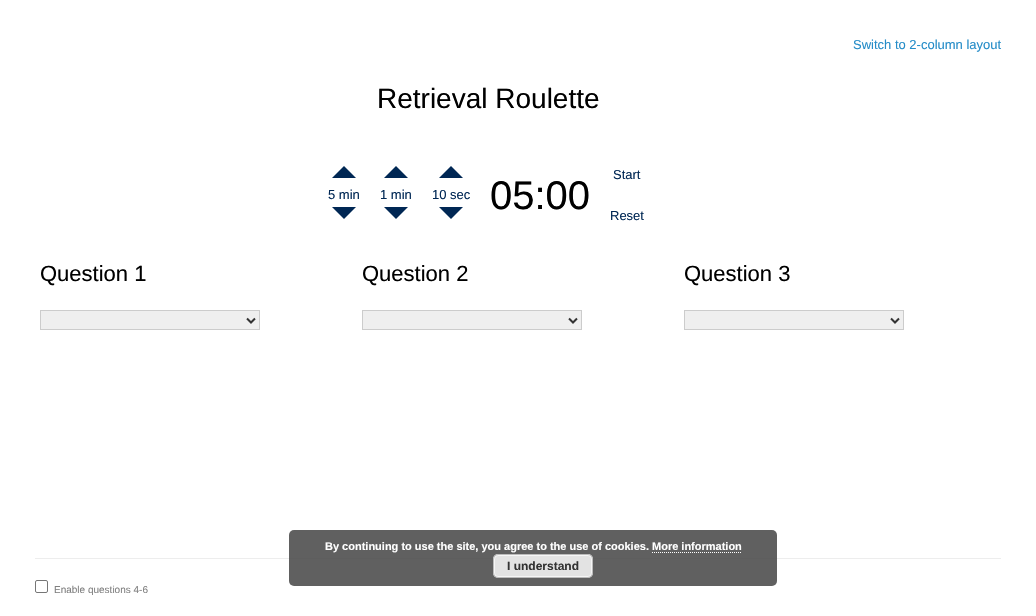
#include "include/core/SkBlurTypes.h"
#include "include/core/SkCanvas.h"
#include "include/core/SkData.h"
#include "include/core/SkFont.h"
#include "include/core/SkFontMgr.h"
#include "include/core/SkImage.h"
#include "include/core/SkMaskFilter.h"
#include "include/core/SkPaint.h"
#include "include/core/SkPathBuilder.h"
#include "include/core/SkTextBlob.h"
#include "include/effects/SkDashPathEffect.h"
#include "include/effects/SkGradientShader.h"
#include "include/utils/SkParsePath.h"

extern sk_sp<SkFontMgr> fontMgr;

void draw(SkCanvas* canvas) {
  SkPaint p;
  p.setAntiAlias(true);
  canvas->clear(SK_ColorWHITE);
  p.setColor(SkColorSetRGB(0, 39, 84));
  canvas->drawPath(SkPathBuilder().moveTo(356, 178).lineTo(332, 178).lineTo(344, 166).close().detach(), p);
  canvas->drawPath(SkPathBuilder().moveTo(332, 207).lineTo(356, 207).lineTo(344, 219).close().detach(), p);
  canvas->drawPath(SkPathBuilder().moveTo(408, 178).lineTo(384, 178).lineTo(396, 166).close().detach(), p);
  canvas->drawPath(SkPathBuilder().moveTo(384, 207).lineTo(408, 207).lineTo(396, 219).close().detach(), p);
  canvas->drawPath(SkPathBuilder().moveTo(463, 178).lineTo(439, 178).lineTo(451, 166).close().detach(), p);
  canvas->drawPath(SkPathBuilder().moveTo(439, 207).lineTo(463, 207).lineTo(451, 219).close().detach(), p);
  p.setColor(SkColorSetRGB(237, 237, 237));
  canvas->drawRect(SkRect::MakeLTRB(35, 558, 1001, 559), p);
  p.setColor(SkColorSetRGB(239, 239, 239));
  canvas->drawRect(SkRect::MakeLTRB(40.5f, 310.5f, 259.5f, 329.5f), p);
  p.setStyle(SkPaint::kStroke_Style);
  p.setStrokeWidth(1);
  p.setColor(SkColorSetRGB(204, 204, 204));
  canvas->drawRect(SkRect::MakeLTRB(40.5f, 310.5f, 259.5f, 329.5f), p);
  p.setStrokeWidth(2);
  p.setColor(SkColorSetRGB(51, 51, 51));
  canvas->drawPath(SkPathBuilder().moveTo(247, 318.5f).lineTo(251, 322.5f).lineTo(255, 318.5f).detach(), p);
  p.setStyle(SkPaint::kFill_Style);
  p.setColor(SkColorSetRGB(239, 239, 239));
  canvas->drawRect(SkRect::MakeLTRB(362.5f, 310.5f, 581.5f, 329.5f), p);
  p.setStyle(SkPaint::kStroke_Style);
  p.setStrokeWidth(1);
  p.setColor(SkColorSetRGB(204, 204, 204));
  canvas->drawRect(SkRect::MakeLTRB(362.5f, 310.5f, 581.5f, 329.5f), p);
  p.setStrokeWidth(2);
  p.setColor(SkColorSetRGB(51, 51, 51));
  canvas->drawPath(SkPathBuilder().moveTo(569, 318.5f).lineTo(573, 322.5f).lineTo(577, 318.5f).detach(), p);
  p.setStyle(SkPaint::kFill_Style);
  p.setColor(SkColorSetRGB(239, 239, 239));
  canvas->drawRect(SkRect::MakeLTRB(684.5f, 310.5f, 903.5f, 329.5f), p);
  p.setStyle(SkPaint::kStroke_Style);
  p.setStrokeWidth(1);
  p.setColor(SkColorSetRGB(204, 204, 204));
  canvas->drawRect(SkRect::MakeLTRB(684.5f, 310.5f, 903.5f, 329.5f), p);
  p.setStrokeWidth(2);
  p.setColor(SkColorSetRGB(51, 51, 51));
  canvas->drawPath(SkPathBuilder().moveTo(891, 318.5f).lineTo(895, 322.5f).lineTo(899, 318.5f).detach(), p);
  p.setStrokeWidth(1);
  p.setColor(SkColorSetRGB(118, 118, 118));
  canvas->drawRoundRect(SkRect::MakeLTRB(35.5f, 580.5f, 47.5f, 592.5f), 1.5f, 1.5f, p);
  p.setStyle(SkPaint::kFill_Style);
  p.setColor(SkColorSetARGB(217, 68, 68, 68));
  canvas->drawRoundRect(SkRect::MakeLTRB(289, 530, 777, 586), 5, 5, p);
  p.setStyle(SkPaint::kStroke_Style);
  p.setColor(SK_ColorWHITE);
  p.setPathEffect(SkDashPathEffect::Make({{1, 1}}, 0));
  canvas->drawPath(SkPathBuilder().moveTo(652, 552.5f).lineTo(741, 552.5f).detach(), p);
  p.setPathEffect(nullptr);
  p.setStyle(SkPaint::kFill_Style);
  p.setColor(SkColorSetRGB(227, 227, 227));
  canvas->drawRoundRect(SkRect::MakeLTRB(493, 554, 593, 578), 5, 5, p);
  p.setStyle(SkPaint::kStroke_Style);
  p.setColor(SkColorSetRGB(246, 246, 246));
  canvas->drawRoundRect(SkRect::MakeLTRB(494.5f, 555.5f, 591.5f, 576.5f), 3.5f, 3.5f, p);
  p.setColor(SkColorSetRGB(187, 187, 187));
  canvas->drawRoundRect(SkRect::MakeLTRB(493.5f, 554.5f, 592.5f, 577.5f), 4.5f, 4.5f, p);
  SkFont font1(fontMgr->matchFamilyStyle("Liberation Sans", SkFontStyle::Normal()), 13);
  font1.setSubpixel(true);
  p.setStyle(SkPaint::kFill_Style);
  p.setColor(SkColorSetRGB(36, 140, 200));
  canvas->drawString("Switch to 2-column layout", 853, 49, font1, p);
  SkFont font2(fontMgr->matchFamilyStyle("Liberation Sans", SkFontStyle::Normal()), 28);
  font2.setSubpixel(true);
  p.setColor(SK_ColorBLACK);
  canvas->drawString("Retrieval Roulette", 377, 108, font2, p);
  p.setColor(SkColorSetRGB(0, 39, 84));
  canvas->drawString("5 min", 328, 199, font1, p);
  canvas->drawString("1 min", 380, 199, font1, p);
  canvas->drawString("10 sec", 432, 199, font1, p);
  SkFont font3(fontMgr->matchFamilyStyle("Liberation Sans", SkFontStyle::Normal()), 40);
  font3.setSubpixel(true);
  p.setColor(SK_ColorBLACK);
  canvas->drawString("05:00", 490, 209, font3, p);
  p.setColor(SkColorSetRGB(0, 39, 84));
  canvas->drawString("Start", 613, 179, font1, p);
  canvas->drawString("Reset", 610, 220, font1, p);
  SkFont font4(fontMgr->matchFamilyStyle("Liberation Sans", SkFontStyle::Normal()), 22);
  font4.setSubpixel(true);
  p.setColor(SK_ColorBLACK);
  canvas->drawString("Question 1", 40, 281, font4, p);
  canvas->drawString("Question 2", 362, 281, font4, p);
  canvas->drawString("Question 3", 684, 281, font4, p);
  SkFont font5(fontMgr->matchFamilyStyle("Liberation Sans", SkFontStyle::Normal()), 10);
  font5.setSubpixel(true);
  p.setColor(SkColorSetRGB(128, 128, 128));
  canvas->drawString("Enable questions 4-6", 54, 593, font5, p);
  SkFont font6(fontMgr->matchFamilyStyle("Liberation Sans", SkFontStyle::Bold()), 11);
  font6.setSubpixel(true);
  p.setColor(SK_ColorWHITE);
  canvas->drawString("By continuing to use the site, you agree to the use of cookies. More information", 325, 550, font6, p);
  SkFont font7(fontMgr->matchFamilyStyle("Liberation Sans", SkFontStyle::Bold()), 12);
  font7.setSubpixel(true);
  p.setColor(SkColorSetRGB(51, 51, 51));
  canvas->drawString("I understand", 507, 570, font7, p);
}
